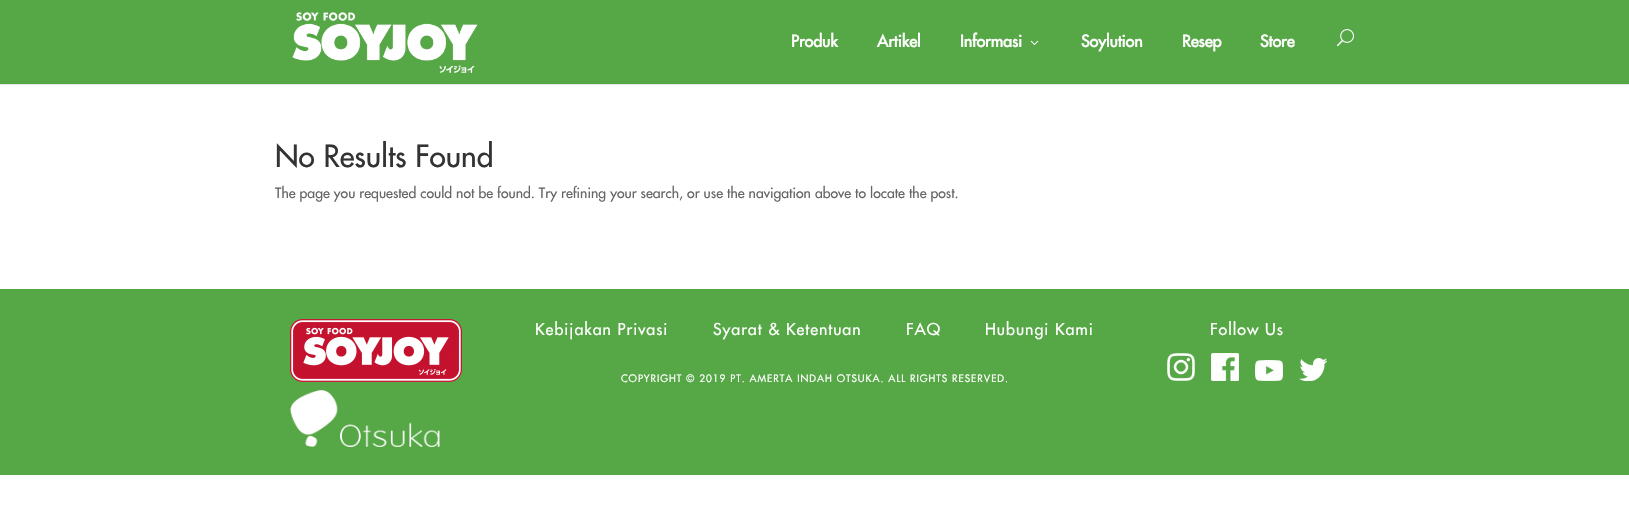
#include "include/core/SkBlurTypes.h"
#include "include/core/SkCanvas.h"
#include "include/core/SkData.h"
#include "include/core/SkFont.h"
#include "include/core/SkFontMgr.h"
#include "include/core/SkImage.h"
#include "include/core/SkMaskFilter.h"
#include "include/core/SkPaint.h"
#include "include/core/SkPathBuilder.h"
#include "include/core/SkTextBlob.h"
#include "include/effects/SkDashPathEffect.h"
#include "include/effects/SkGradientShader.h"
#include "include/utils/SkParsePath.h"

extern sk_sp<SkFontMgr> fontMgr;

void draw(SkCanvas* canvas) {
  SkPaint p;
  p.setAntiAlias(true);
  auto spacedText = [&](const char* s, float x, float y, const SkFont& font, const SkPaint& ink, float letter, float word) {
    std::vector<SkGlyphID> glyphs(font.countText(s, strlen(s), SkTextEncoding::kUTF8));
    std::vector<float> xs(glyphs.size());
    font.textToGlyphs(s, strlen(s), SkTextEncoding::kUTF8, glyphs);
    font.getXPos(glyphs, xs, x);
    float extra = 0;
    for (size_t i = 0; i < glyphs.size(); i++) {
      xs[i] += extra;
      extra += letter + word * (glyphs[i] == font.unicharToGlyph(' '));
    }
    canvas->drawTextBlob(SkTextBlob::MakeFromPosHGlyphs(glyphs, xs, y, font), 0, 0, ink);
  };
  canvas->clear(SK_ColorWHITE);
  p.setColor(SkColorSetRGB(230, 230, 230));
  canvas->drawRect(SkRect::MakeLTRB(0, 84, 1629, 85), p);
  p.setColor(SkColorSetRGB(86, 167, 70));
  canvas->drawRect(SkRect::MakeLTRB(0, 0, 1629, 84), p);
  canvas->drawImageRect(SkImages::DeferredFromEncodedData(SkData::MakeFromFileName("images/1.png")), SkRect::MakeLTRB(292, 12, 478, 73), SkSamplingOptions());
  canvas->drawImageRect(SkImages::DeferredFromEncodedData(SkData::MakeFromFileName("images/2.png")), SkRect::MakeLTRB(1030, 40, 1039, 45), SkSamplingOptions());
  canvas->drawImageRect(SkImages::DeferredFromEncodedData(SkData::MakeFromFileName("images/3.png")), SkRect::MakeLTRB(1337, 29, 1354, 47), SkSamplingOptions());
  canvas->drawRect(SkRect::MakeLTRB(0, 289, 1629, 475), p);
  canvas->drawImageRect(SkImages::DeferredFromEncodedData(SkData::MakeFromFileName("images/4.png")), SkRect::MakeLTRB(290, 319, 462, 382), SkSamplingOptions());
  canvas->drawImageRect(SkImages::DeferredFromEncodedData(SkData::MakeFromFileName("images/5.png")), SkRect::MakeLTRB(290, 390, 440, 447), SkSamplingOptions());
  canvas->drawImageRect(SkImages::DeferredFromEncodedData(SkData::MakeFromFileName("images/6.png")), SkRect::MakeLTRB(1167, 353, 1195, 381), SkSamplingOptions());
  canvas->drawImageRect(SkImages::DeferredFromEncodedData(SkData::MakeFromFileName("images/7.png")), SkRect::MakeLTRB(1211, 353, 1239, 381), SkSamplingOptions());
  canvas->drawImageRect(SkImages::DeferredFromEncodedData(SkData::MakeFromFileName("images/8.png")), SkRect::MakeLTRB(1255, 360, 1283, 381), SkSamplingOptions());
  canvas->drawImageRect(SkImages::DeferredFromEncodedData(SkData::MakeFromFileName("images/9.png")), SkRect::MakeLTRB(1299, 358, 1327, 381), SkSamplingOptions());
  SkFont font1(fontMgr->matchFamilyStyle("Futura", SkFontStyle::Bold()), 16);
  font1.setSubpixel(true);
  p.setColor(SK_ColorWHITE);
  canvas->drawString("Produk", 791, 47, font1, p);
  canvas->drawString("Artikel", 877, 47, font1, p);
  canvas->drawString("Informasi", 960, 47, font1, p);
  canvas->drawString("Soylution", 1081, 47, font1, p);
  canvas->drawString("Resep", 1182, 47, font1, p);
  canvas->drawString("Store", 1260, 47, font1, p);
  SkFont font2(fontMgr->matchFamilyStyle("Futura", SkFontStyle(500, SkFontStyle::kNormal_Width, SkFontStyle::kUpright_Slant)), 30);
  font2.setSubpixel(true);
  p.setColor(SkColorSetRGB(51, 51, 51));
  canvas->drawString("No Results Found", 275, 167, font2, p);
  SkFont font3(fontMgr->matchFamilyStyle("Futura", SkFontStyle(500, SkFontStyle::kNormal_Width, SkFontStyle::kUpright_Slant)), 14);
  font3.setSubpixel(true);
  p.setColor(SkColorSetRGB(102, 102, 102));
  canvas->drawString("The page you requested could not be found. Try refining your search, or use the navigation above to locate the post.", 275, 198, font3, p);
  SkFont font4(fontMgr->matchFamilyStyle("Futura", SkFontStyle(500, SkFontStyle::kNormal_Width, SkFontStyle::kUpright_Slant)), 16);
  font4.setSubpixel(true);
  p.setColor(SK_ColorWHITE);
  spacedText("Kebijakan Privasi", 535, 335, font4, p, 1, 0);
  spacedText("Syarat & Ketentuan", 713, 335, font4, p, 1, 0);
  spacedText("FAQ", 906, 335, font4, p, 1, 0);
  spacedText("Hubungi Kami", 985, 335, font4, p, 1, 0);
  SkFont font5(fontMgr->matchFamilyStyle("Futura", SkFontStyle(500, SkFontStyle::kNormal_Width, SkFontStyle::kUpright_Slant)), 10);
  font5.setSubpixel(true);
  spacedText("COPYRIGHT © 2019 PT. AMERTA INDAH OTSUKA. ALL RIGHTS RESERVED.", 621, 382, font5, p, 1, 0);
  spacedText("Follow Us", 1210, 335, font4, p, 1, 0);
}
